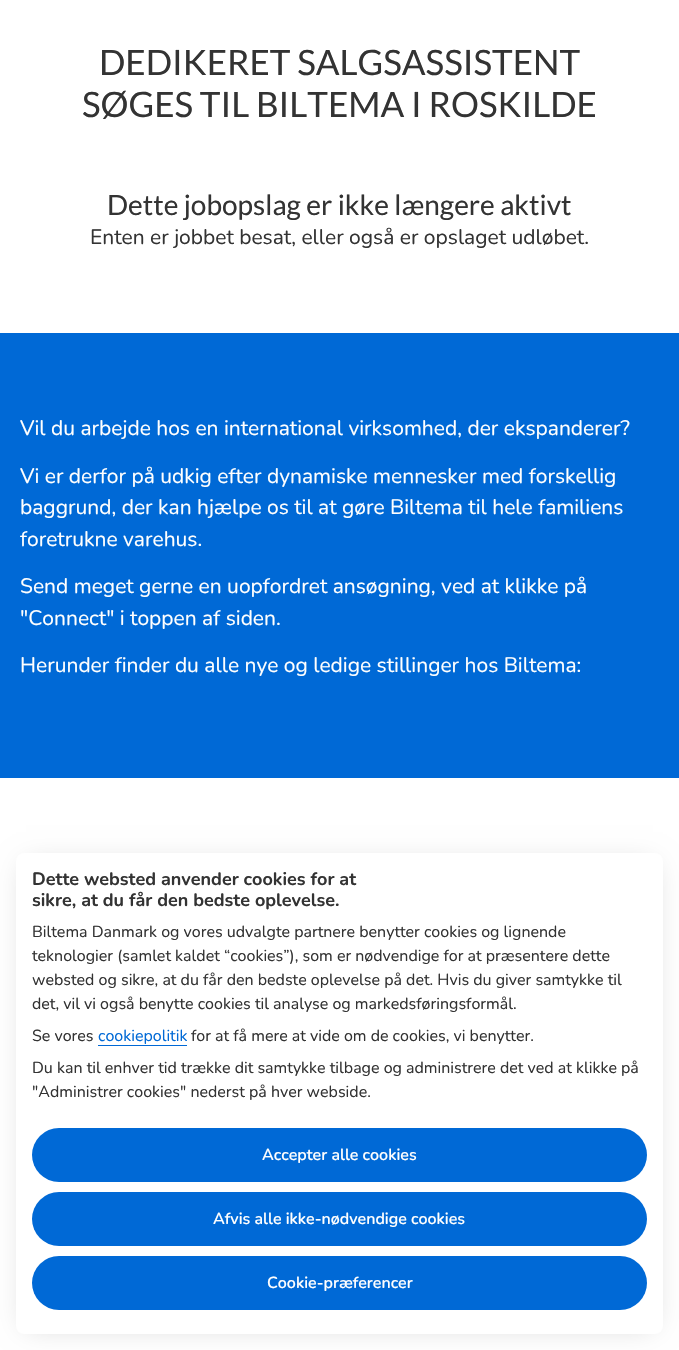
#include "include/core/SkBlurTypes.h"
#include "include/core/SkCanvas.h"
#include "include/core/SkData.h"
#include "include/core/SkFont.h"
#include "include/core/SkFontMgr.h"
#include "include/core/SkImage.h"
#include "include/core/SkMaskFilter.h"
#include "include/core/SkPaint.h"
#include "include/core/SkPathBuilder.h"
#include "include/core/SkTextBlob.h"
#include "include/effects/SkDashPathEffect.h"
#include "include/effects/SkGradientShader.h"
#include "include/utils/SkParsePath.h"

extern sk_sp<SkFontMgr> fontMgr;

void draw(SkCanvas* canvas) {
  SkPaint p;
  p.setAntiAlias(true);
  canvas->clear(SK_ColorWHITE);
  p.setColor(SkColorSetRGB(0, 105, 214));
  canvas->drawRect(SkRect::MakeLTRB(0, 333, 679, 778), p);
  p.setColor(SkColorSetARGB(46, 0, 0, 0));
  p.setMaskFilter(SkMaskFilter::MakeBlur(kNormal_SkBlurStyle, 13.5f));
  canvas->drawRect(SkRect::MakeLTRB(26, 865, 653, 1326), p);
  p.setMaskFilter(nullptr);
  p.setColor(SK_ColorWHITE);
  canvas->drawRoundRect(SkRect::MakeLTRB(16, 853, 663, 1334), 8, 8, p);
  p.setColor(SkColorSetRGB(0, 105, 214));
  canvas->drawRect(SkRect::MakeLTRB(98, 1045, 187, 1046), p);
  canvas->drawRoundRect(SkRect::MakeLTRB(32, 1128, 647, 1182), 27, 27, p);
  canvas->drawRoundRect(SkRect::MakeLTRB(32, 1192, 647, 1246), 27, 27, p);
  canvas->drawRoundRect(SkRect::MakeLTRB(32, 1256, 647, 1310), 27, 27, p);
  SkFont font1(fontMgr->matchFamilyStyle("Lato", SkFontStyle::Normal()), 35);
  font1.setSubpixel(true);
  p.setColor(SkColorSetRGB(51, 51, 51));
  canvas->drawString("DEDIKERET SALGSASSISTENT", 99, 75, font1, p);
  canvas->drawString("SØGES TIL BILTEMA I ROSKILDE", 82, 117, font1, p);
  SkFont font2(fontMgr->matchFamilyStyle("Lato", SkFontStyle::Normal()), 28);
  font2.setSubpixel(true);
  canvas->drawString("Dette jobopslag er ikke længere aktivt", 107, 215, font2, p);
  SkFont font3(fontMgr->matchFamilyStyle("Nunito", SkFontStyle(200, SkFontStyle::kNormal_Width, SkFontStyle::kUpright_Slant)), 21);
  font3.setSubpixel(true);
  canvas->drawString("Enten er jobbet besat, eller også er opslaget udløbet.", 90, 244, font3, p);
  p.setColor(SK_ColorWHITE);
  canvas->drawString("Vil du arbejde hos en international virksomhed, der ekspanderer?", 20, 435, font3, p);
  canvas->drawString("Vi er derfor på udkig efter dynamiske mennesker med forskellig", 20, 483, font3, p);
  canvas->drawString("baggrund, der kan hjælpe os til at gøre Biltema til hele familiens", 20, 514, font3, p);
  canvas->drawString("foretrukne varehus.", 20, 546, font3, p);
  canvas->drawString("Send meget gerne en uopfordret ansøgning, ved at klikke på", 20, 593, font3, p);
  canvas->drawString("\"Connect\" i toppen af siden.", 20, 625, font3, p);
  canvas->drawString("Herunder finder du alle nye og ledige stillinger hos Biltema:", 20, 672, font3, p);
  SkFont font4(fontMgr->matchFamilyStyle("Nunito", SkFontStyle::Bold()), 18);
  font4.setSubpixel(true);
  p.setColor(SkColorSetRGB(51, 51, 51));
  canvas->drawString("Dette websted anvender cookies for at", 32, 885, font4, p);
  canvas->drawString("sikre, at du får den bedste oplevelse.", 32, 906, font4, p);
  SkFont font5(fontMgr->matchFamilyStyle("Nunito", SkFontStyle(200, SkFontStyle::kNormal_Width, SkFontStyle::kUpright_Slant)), 16);
  font5.setSubpixel(true);
  canvas->drawString("Biltema Danmark og vores udvalgte partnere benytter cookies og lignende", 32, 937, font5, p);
  canvas->drawString("teknologier (samlet kaldet “cookies”), som er nødvendige for at præsentere dette", 32, 961, font5, p);
  canvas->drawString("websted og sikre, at du får den bedste oplevelse på det. Hvis du giver samtykke til", 32, 985, font5, p);
  canvas->drawString("det, vil vi også benytte cookies til analyse og markedsføringsformål.", 32, 1009, font5, p);
  canvas->drawString("Se vores", 32, 1041, font5, p);
  p.setColor(SkColorSetRGB(0, 105, 214));
  canvas->drawString("cookiepolitik", 98, 1041, font5, p);
  p.setColor(SkColorSetRGB(51, 51, 51));
  canvas->drawString("for at få mere at vide om de cookies, vi benytter.", 191, 1041, font5, p);
  canvas->drawString("Du kan til enhver tid trække dit samtykke tilbage og administrere det ved at klikke på", 32, 1073, font5, p);
  canvas->drawString("\"Administrer cookies\" nederst på hver webside.", 32, 1097, font5, p);
  SkFont font6(fontMgr->matchFamilyStyle("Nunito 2", SkFontStyle(200, SkFontStyle::kNormal_Width, SkFontStyle::kUpright_Slant)), 16);
  font6.setSubpixel(true);
  p.setColor(SK_ColorWHITE);
  canvas->drawString("Accepter alle cookies", 262, 1160, font6, p);
  canvas->drawString("Afvis alle ikke-nødvendige cookies", 213, 1224, font6, p);
  canvas->drawString("Cookie-præferencer", 267, 1288, font6, p);
}
